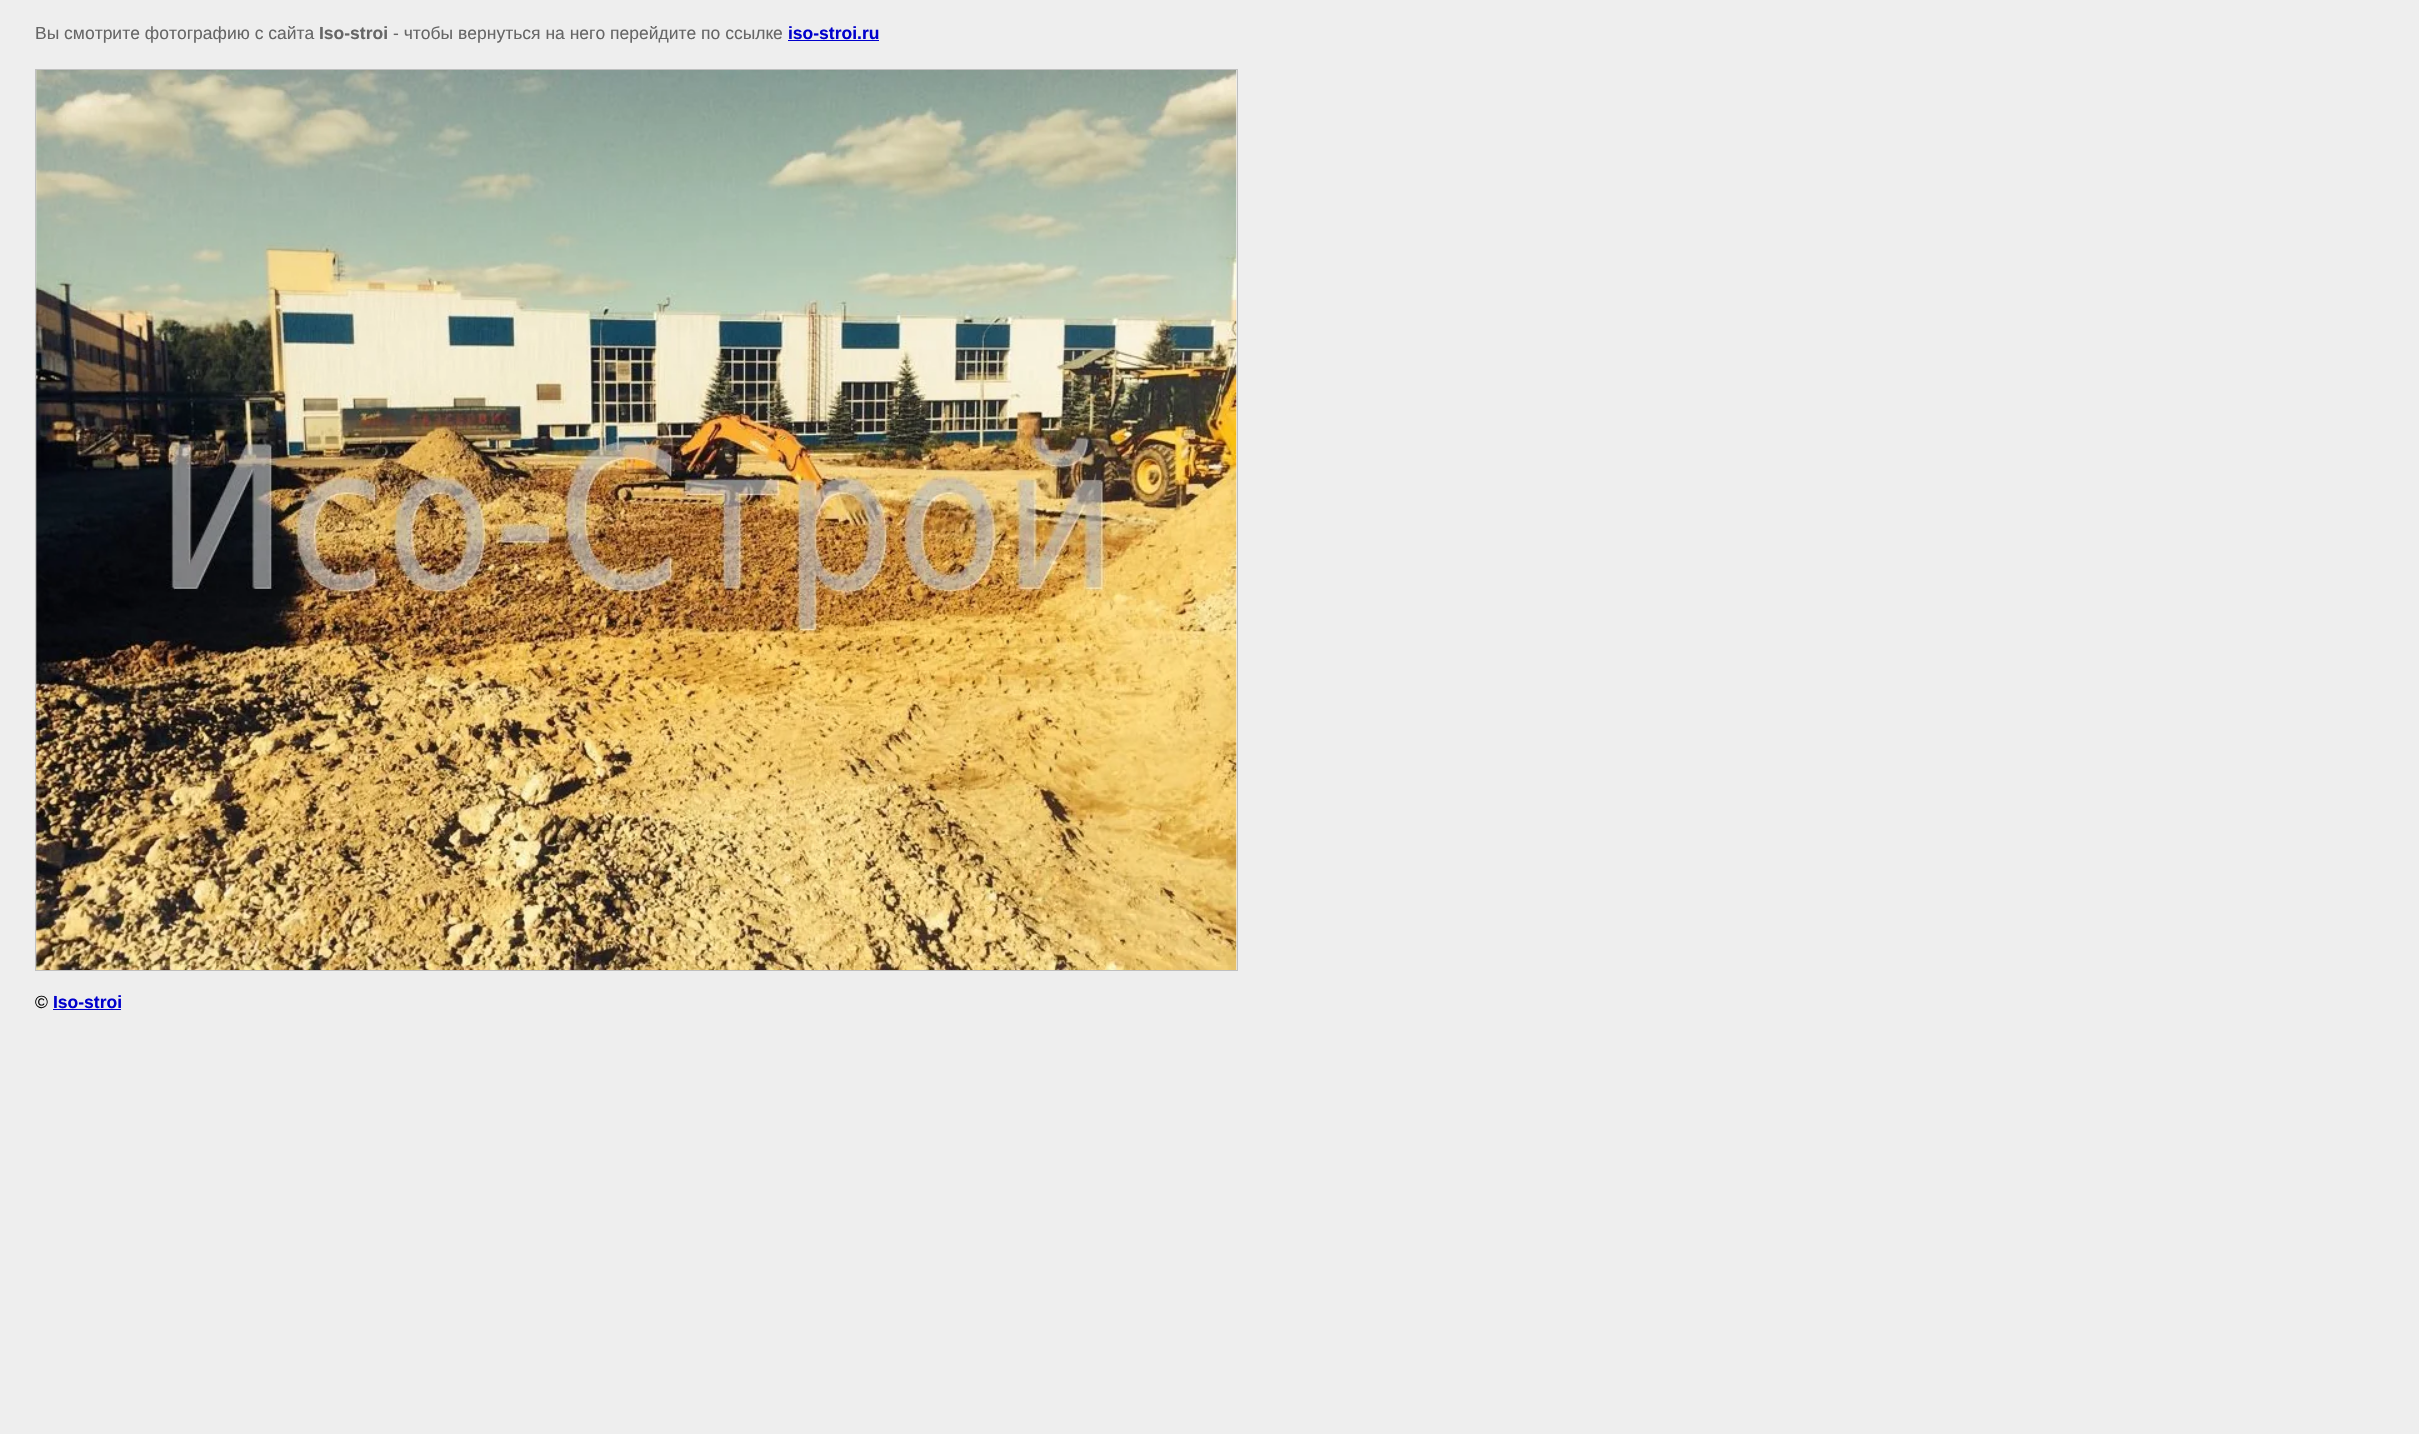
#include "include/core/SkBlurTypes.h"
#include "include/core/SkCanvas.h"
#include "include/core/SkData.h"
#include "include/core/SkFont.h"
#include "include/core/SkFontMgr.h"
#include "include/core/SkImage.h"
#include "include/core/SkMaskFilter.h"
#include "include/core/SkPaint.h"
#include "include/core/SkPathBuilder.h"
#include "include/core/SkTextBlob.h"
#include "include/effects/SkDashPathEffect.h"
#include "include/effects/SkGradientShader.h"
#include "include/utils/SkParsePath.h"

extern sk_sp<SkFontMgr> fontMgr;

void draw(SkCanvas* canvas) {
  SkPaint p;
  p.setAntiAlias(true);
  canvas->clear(SkColorSetRGB(238, 238, 238));
  p.setColor(SkColorSetRGB(0, 0, 204));
  canvas->drawRect(SkRect::MakeLTRB(788, 40, 879, 41), p);
  p.setStyle(SkPaint::kStroke_Style);
  p.setStrokeWidth(1);
  p.setColor(SkColorSetRGB(192, 192, 192));
  canvas->drawRect(SkRect::MakeLTRB(35.5f, 69.5f, 1237.5f, 970.5f), p);
  canvas->drawImageRect(SkImages::DeferredFromEncodedData(SkData::MakeFromFileName("images/1.png")), SkRect::MakeLTRB(36, 70, 1237, 970), SkSamplingOptions());
  p.setStyle(SkPaint::kFill_Style);
  p.setColor(SkColorSetRGB(0, 0, 204));
  canvas->drawRect(SkRect::MakeLTRB(53, 1009, 121, 1010), p);
  SkFont font1(fontMgr->matchFamilyStyle("Liberation Sans", SkFontStyle::Normal()), 17.5f);
  font1.setSubpixel(true);
  p.setColor(SkColorSetRGB(102, 102, 102));
  canvas->drawString("Вы смотрите фотографию с сайта", 35, 39, font1, p);
  SkFont font2(fontMgr->matchFamilyStyle("Liberation Sans", SkFontStyle::Bold()), 17.5f);
  font2.setSubpixel(true);
  canvas->drawString("Iso-stroi", 319, 39, font2, p);
  canvas->drawString("- чтобы вернуться на него перейдите по ссылке", 393, 39, font1, p);
  p.setColor(SkColorSetRGB(0, 0, 204));
  canvas->drawString("iso-stroi.ru", 788, 39, font2, p);
  p.setColor(SK_ColorBLACK);
  canvas->drawString("©", 35, 1008, font1, p);
  p.setColor(SkColorSetRGB(0, 0, 204));
  canvas->drawString("Iso-stroi", 53, 1008, font2, p);
}
